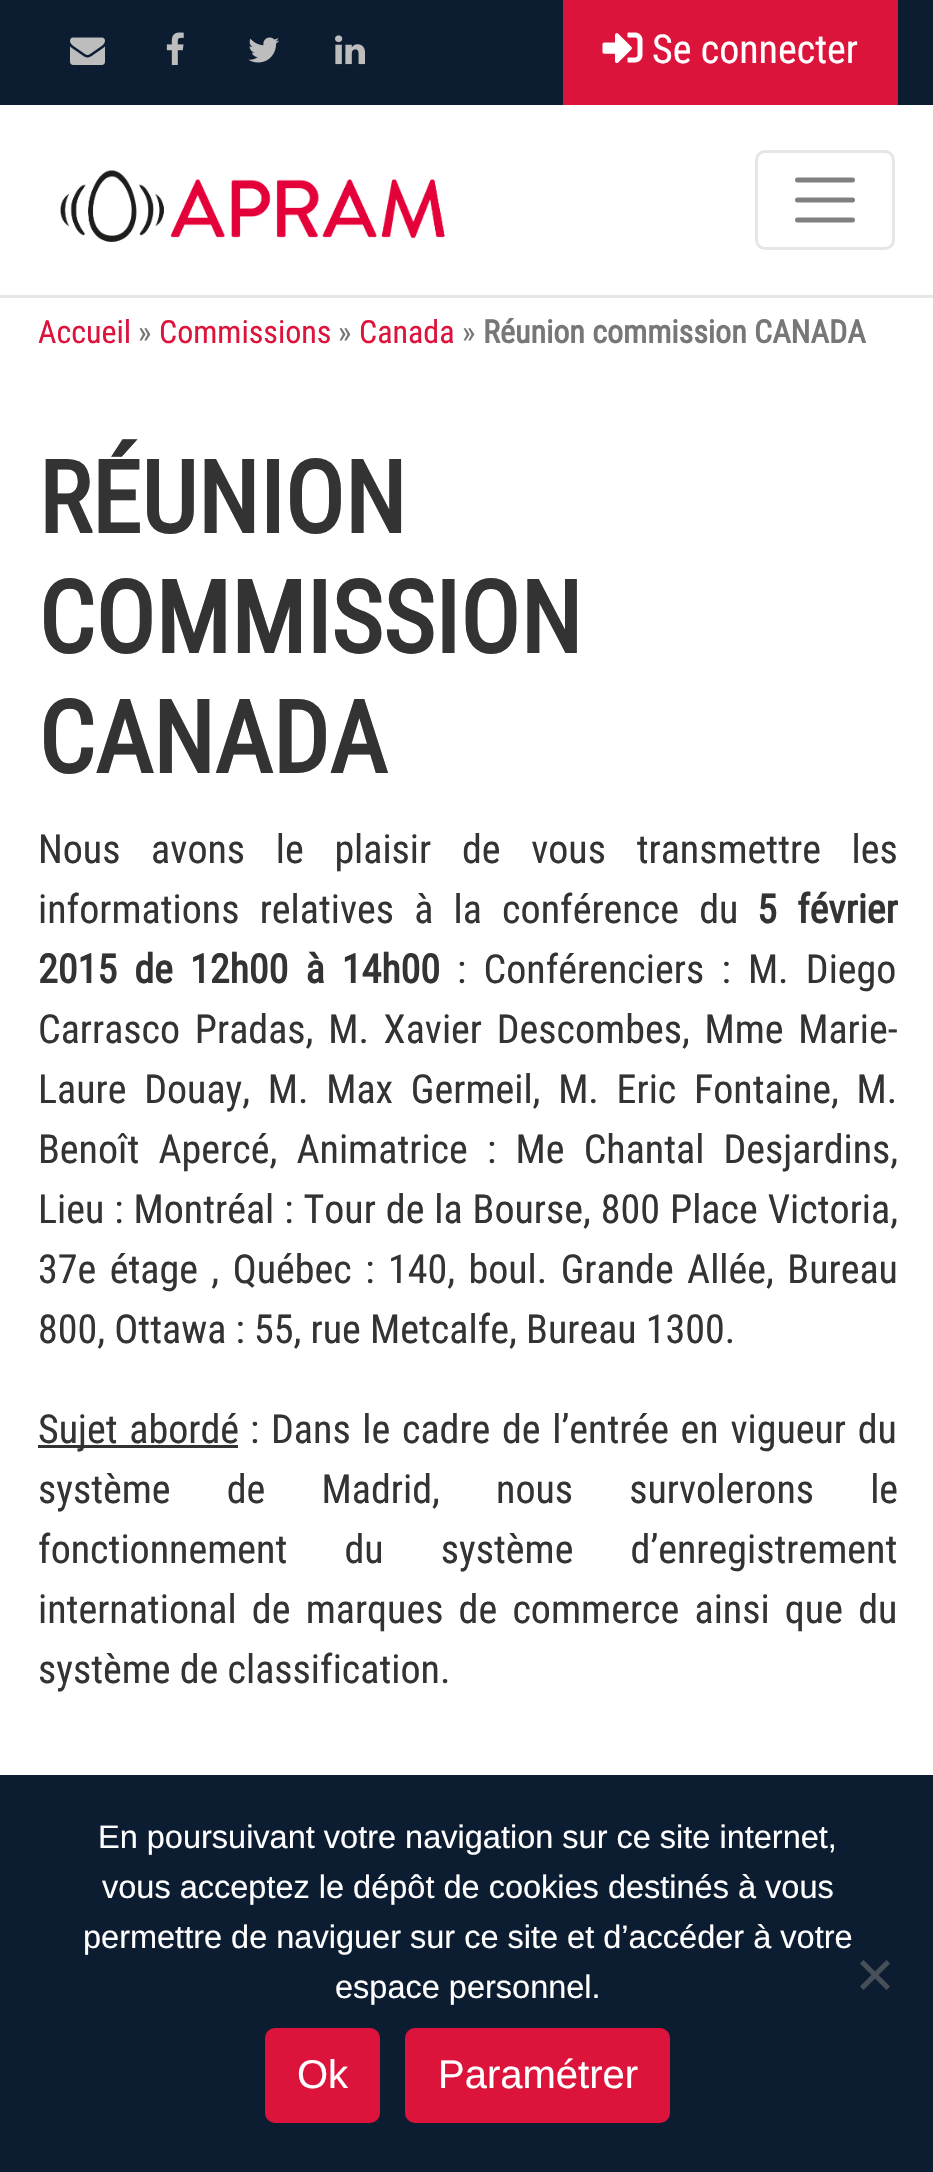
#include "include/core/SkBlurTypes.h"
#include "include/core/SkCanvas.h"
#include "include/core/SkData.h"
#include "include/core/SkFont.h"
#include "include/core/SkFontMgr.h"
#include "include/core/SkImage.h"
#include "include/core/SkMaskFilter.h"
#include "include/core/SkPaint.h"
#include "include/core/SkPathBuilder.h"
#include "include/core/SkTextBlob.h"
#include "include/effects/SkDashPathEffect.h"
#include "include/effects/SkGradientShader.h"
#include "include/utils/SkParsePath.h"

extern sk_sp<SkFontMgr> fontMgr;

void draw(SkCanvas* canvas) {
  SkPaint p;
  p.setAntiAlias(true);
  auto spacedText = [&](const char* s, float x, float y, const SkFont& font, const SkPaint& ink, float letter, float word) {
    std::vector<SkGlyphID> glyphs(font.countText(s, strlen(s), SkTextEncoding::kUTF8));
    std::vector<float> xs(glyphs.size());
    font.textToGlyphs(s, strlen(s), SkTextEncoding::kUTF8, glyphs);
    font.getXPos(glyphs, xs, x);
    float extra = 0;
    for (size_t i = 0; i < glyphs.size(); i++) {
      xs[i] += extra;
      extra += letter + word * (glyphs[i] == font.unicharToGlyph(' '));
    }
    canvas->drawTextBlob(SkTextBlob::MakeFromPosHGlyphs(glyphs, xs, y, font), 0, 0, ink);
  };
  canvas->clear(SK_ColorWHITE);
  p.setColor(SkColorSetRGB(13, 29, 49));
  canvas->drawRect(SkRect::MakeLTRB(0, 0, 933, 105), p);
  canvas->drawImageRect(SkImages::DeferredFromEncodedData(SkData::MakeFromFileName("images/1.png")), SkRect::MakeLTRB(70, 37, 105, 65), SkSamplingOptions());
  canvas->drawImageRect(SkImages::DeferredFromEncodedData(SkData::MakeFromFileName("images/2.png")), SkRect::MakeLTRB(166, 32, 184, 65), SkSamplingOptions());
  canvas->drawImageRect(SkImages::DeferredFromEncodedData(SkData::MakeFromFileName("images/3.png")), SkRect::MakeLTRB(248, 37, 279, 63), SkSamplingOptions());
  canvas->drawImageRect(SkImages::DeferredFromEncodedData(SkData::MakeFromFileName("images/4.png")), SkRect::MakeLTRB(335, 35, 365, 65), SkSamplingOptions());
  p.setColor(SkColorSetRGB(220, 20, 60));
  canvas->drawRect(SkRect::MakeLTRB(563, 0, 898, 105), p);
  canvas->drawImageRect(SkImages::DeferredFromEncodedData(SkData::MakeFromFileName("images/5.png")), SkRect::MakeLTRB(602, 32, 643, 64), SkSamplingOptions());
  p.setColor(SkColorSetRGB(230, 230, 230));
  canvas->drawRect(SkRect::MakeLTRB(0, 295, 933, 298), p);
  canvas->drawImageRect(SkImages::DeferredFromEncodedData(SkData::MakeFromFileName("images/6.png")), SkRect::MakeLTRB(60, 170, 445, 242), SkSamplingOptions());
  p.setStyle(SkPaint::kStroke_Style);
  p.setStrokeWidth(3);
  canvas->drawRoundRect(SkRect::MakeLTRB(756.5f, 151.5f, 893.5f, 248.5f), 8.5f, 8.5f, p);
  p.setStrokeWidth(5);
  p.setStrokeCap(SkPaint::kRound_Cap);
  p.setColor(SkColorSetRGB(128, 128, 128));
  canvas->drawPath(SkPathBuilder().moveTo(797.5f, 180).lineTo(852.5f, 180).moveTo(797.5f, 200).lineTo(852.5f, 200).moveTo(797.5f, 220).lineTo(852.5f, 220).detach(), p);
  p.setStyle(SkPaint::kFill_Style);
  p.setColor(SkColorSetRGB(51, 51, 51));
  canvas->drawRect(SkRect::MakeLTRB(38, 1445, 238, 1448), p);
  p.setColor(SkColorSetRGB(13, 29, 49));
  canvas->drawRect(SkRect::MakeLTRB(0, 1775, 933, 2172), p);
  p.setColor(SkColorSetRGB(71, 79, 89));
  canvas->drawPath(SkPathBuilder().moveTo(886.5f, 1960).lineTo(890, 1963.5f).lineTo(863.5f, 1990).lineTo(860, 1986.5f).close().detach(), p);
  canvas->drawPath(SkPathBuilder().moveTo(860, 1963.5f).lineTo(863.5f, 1960).lineTo(890, 1986.5f).lineTo(886.5f, 1990).close().detach(), p);
  p.setColor(SkColorSetRGB(220, 20, 60));
  canvas->drawRoundRect(SkRect::MakeLTRB(266.5f, 2029.5f, 378.5f, 2121.5f), 8.5f, 8.5f, p);
  p.setStyle(SkPaint::kStroke_Style);
  p.setStrokeWidth(3);
  p.setStrokeCap(SkPaint::kButt_Cap);
  canvas->drawRoundRect(SkRect::MakeLTRB(266.5f, 2029.5f, 378.5f, 2121.5f), 8.5f, 8.5f, p);
  p.setStyle(SkPaint::kFill_Style);
  canvas->drawRoundRect(SkRect::MakeLTRB(406.5f, 2029.5f, 668.5f, 2121.5f), 8.5f, 8.5f, p);
  p.setStyle(SkPaint::kStroke_Style);
  canvas->drawRoundRect(SkRect::MakeLTRB(406.5f, 2029.5f, 668.5f, 2121.5f), 8.5f, 8.5f, p);
  SkFont font1(fontMgr->matchFamilyStyle("Roboto Condensed", SkFontStyle::Normal()), 40);
  font1.setSubpixel(true);
  p.setStyle(SkPaint::kFill_Style);
  p.setColor(SK_ColorWHITE);
  canvas->drawString("Se connecter", 652, 63, font1, p);
  SkFont font2(fontMgr->matchFamilyStyle("Roboto Condensed", SkFontStyle::Normal()), 32);
  font2.setSubpixel(true);
  p.setColor(SkColorSetRGB(220, 20, 60));
  canvas->drawString("Accueil", 38, 343, font2, p);
  p.setColor(SkColorSetRGB(119, 119, 119));
  canvas->drawString("»", 138, 343, font2, p);
  p.setColor(SkColorSetRGB(220, 20, 60));
  canvas->drawString("Commissions", 159, 343, font2, p);
  p.setColor(SkColorSetRGB(119, 119, 119));
  canvas->drawString("»", 338, 343, font2, p);
  p.setColor(SkColorSetRGB(220, 20, 60));
  canvas->drawString("Canada", 359, 343, font2, p);
  p.setColor(SkColorSetRGB(119, 119, 119));
  canvas->drawString("»", 462, 343, font2, p);
  SkFont font3(fontMgr->matchFamilyStyle("Roboto Condensed", SkFontStyle::Bold()), 32);
  font3.setSubpixel(true);
  canvas->drawString("Réunion commission CANADA", 483, 343, font3, p);
  SkFont font4(fontMgr->matchFamilyStyle("Roboto Condensed", SkFontStyle::Bold()), 100);
  font4.setSubpixel(true);
  p.setColor(SkColorSetRGB(51, 51, 51));
  canvas->drawString("RÉUNION", 38, 533, font4, p);
  canvas->drawString("COMMISSION", 38, 653, font4, p);
  canvas->drawString("CANADA", 38, 773, font4, p);
  spacedText("Nous avons le plaisir de vous transmettre les", 38, 863, font1, p, 0, 21.5f);
  spacedText("informations relatives à la conférence du", 38, 923, font1, p, 0, 11);
  SkFont font5(fontMgr->matchFamilyStyle("Roboto Condensed", SkFontStyle::Bold()), 40);
  font5.setSubpixel(true);
  spacedText("5 février", 757, 923, font5, p, 0, 11);
  spacedText("2015 de 12h00 à 14h00", 38, 983, font5, p, 0, 8);
  spacedText(": Conférenciers : M. Diego", 457, 983, font1, p, 0, 8);
  spacedText("Carrasco Pradas, M. Xavier Descombes, Mme Marie-", 38, 1043, font1, p, 0, 5.5f);
  spacedText("Laure Douay, M. Max Germeil, M. Eric Fontaine, M.", 38, 1103, font1, p, 0, 8.5f);
  spacedText("Benoît Apercé, Animatrice : Me Chantal Desjardins,", 38, 1163, font1, p, 0, 10);
  spacedText("Lieu : Montréal : Tour de la Bourse, 800 Place Victoria,", 38, 1223, font1, p, 0, 0.75f);
  spacedText("37e étage , Québec : 140, boul. Grande Allée, Bureau", 38, 1283, font1, p, 0, 4.25f);
  canvas->drawString("800, Ottawa : 55, rue Metcalfe, Bureau 1300.", 38, 1343, font1, p);
  spacedText("Sujet abordé", 38, 1443, font1, p, 0, 2.5f);
  spacedText(": Dans le cadre de l’entrée en vigueur du", 250, 1443, font1, p, 0, 2.5f);
  spacedText("système de Madrid, nous survolerons le", 38, 1503, font1, p, 0, 47);
  spacedText("fonctionnement du système d’enregistrement", 38, 1563, font1, p, 0, 48);
  spacedText("international de marques de commerce ainsi que du", 38, 1623, font1, p, 0, 6);
  canvas->drawString("système de classification.", 38, 1683, font1, p);
  SkFont font6(fontMgr->matchFamilyStyle("Liberation Sans", SkFontStyle::Normal()), 32.5f);
  font6.setSubpixel(true);
  p.setColor(SK_ColorWHITE);
  canvas->drawString("En poursuivant votre navigation sur ce site internet,", 98, 1848, font6, p);
  canvas->drawString("vous acceptez le dépôt de cookies destinés à vous", 102, 1898, font6, p);
  canvas->drawString("permettre de naviguer sur ce site et d’accéder à votre", 83, 1948, font6, p);
  canvas->drawString("espace personnel.", 335, 1998, font6, p);
  SkFont font7(fontMgr->matchFamilyStyle("Liberation Sans", SkFontStyle::Normal()), 40);
  font7.setSubpixel(true);
  canvas->drawString("Ok", 297, 2088, font7, p);
  canvas->drawString("Paramétrer", 438, 2088, font7, p);
}
